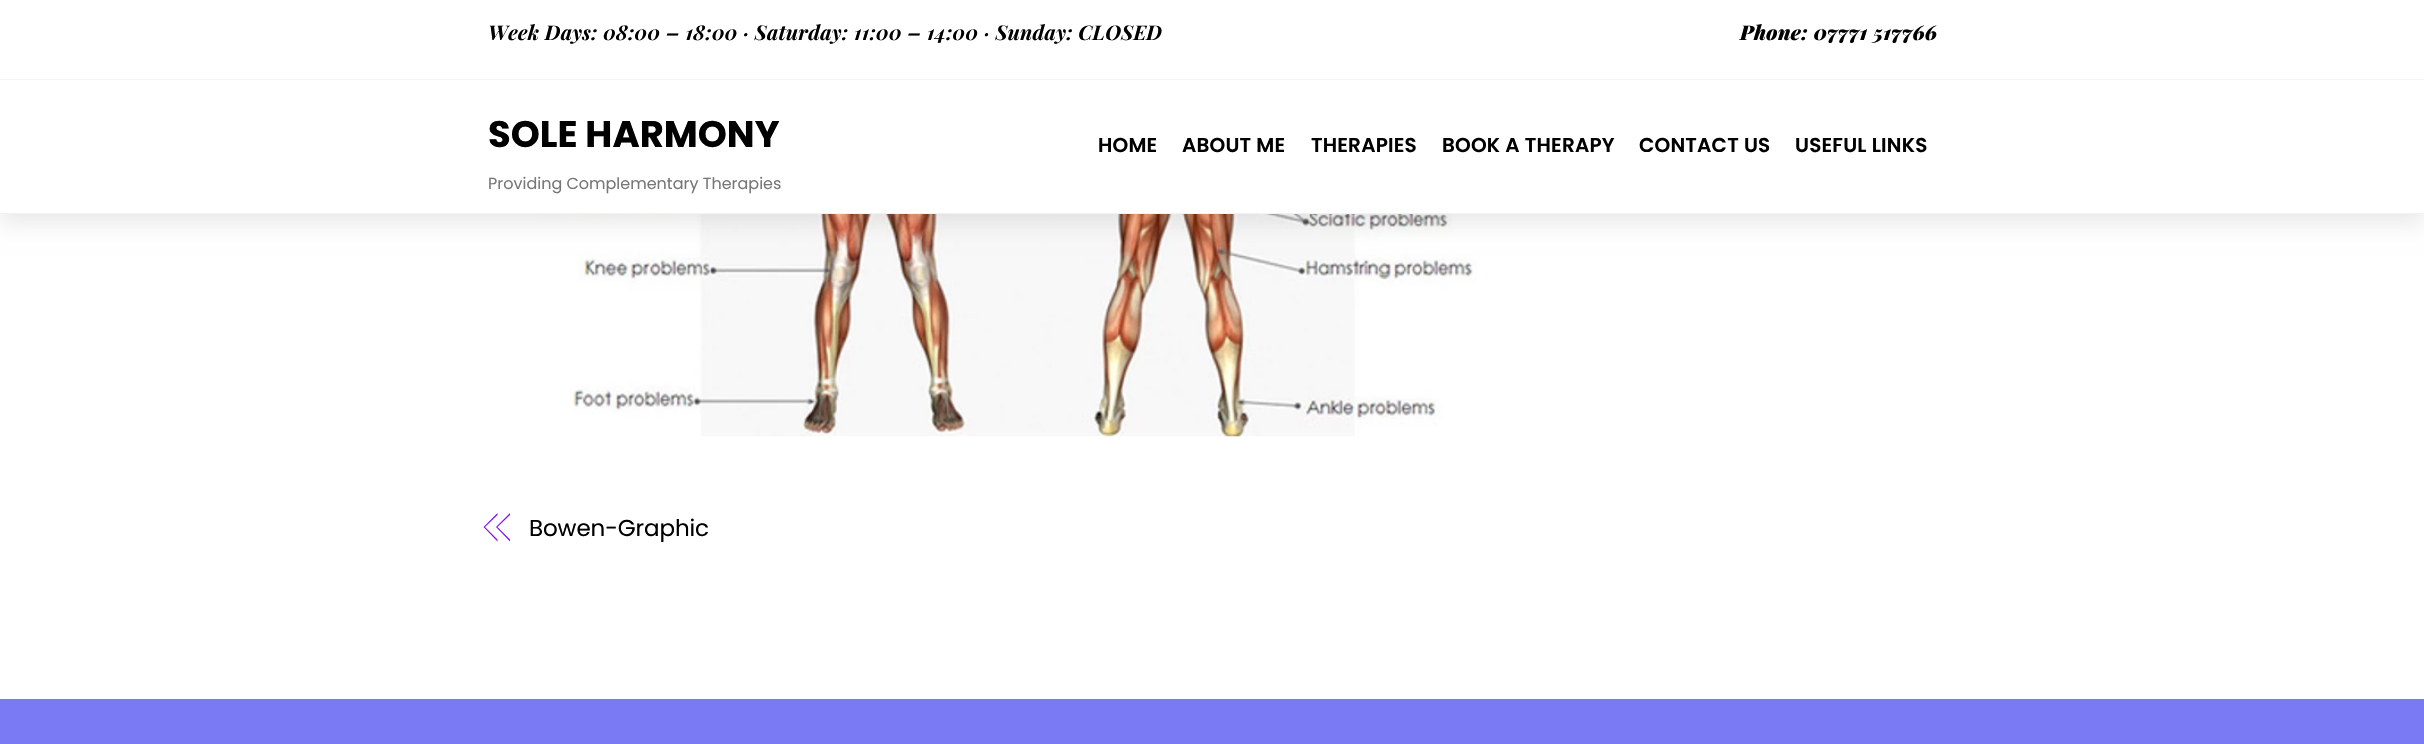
#include "include/core/SkBlurTypes.h"
#include "include/core/SkCanvas.h"
#include "include/core/SkData.h"
#include "include/core/SkFont.h"
#include "include/core/SkFontMgr.h"
#include "include/core/SkImage.h"
#include "include/core/SkMaskFilter.h"
#include "include/core/SkPaint.h"
#include "include/core/SkPathBuilder.h"
#include "include/core/SkTextBlob.h"
#include "include/effects/SkDashPathEffect.h"
#include "include/effects/SkGradientShader.h"
#include "include/utils/SkParsePath.h"

extern sk_sp<SkFontMgr> fontMgr;

void draw(SkCanvas* canvas) {
  SkPaint p;
  p.setAntiAlias(true);
  auto spacedText = [&](const char* s, float x, float y, const SkFont& font, const SkPaint& ink, float letter, float word) {
    std::vector<SkGlyphID> glyphs(font.countText(s, strlen(s), SkTextEncoding::kUTF8));
    std::vector<float> xs(glyphs.size());
    font.textToGlyphs(s, strlen(s), SkTextEncoding::kUTF8, glyphs);
    font.getXPos(glyphs, xs, x);
    float extra = 0;
    for (size_t i = 0; i < glyphs.size(); i++) {
      xs[i] += extra;
      extra += letter + word * (glyphs[i] == font.unicharToGlyph(' '));
    }
    canvas->drawTextBlob(SkTextBlob::MakeFromPosHGlyphs(glyphs, xs, y, font), 0, 0, ink);
  };
  canvas->clear(SK_ColorWHITE);
  canvas->drawImageRect(SkImages::DeferredFromEncodedData(SkData::MakeFromFileName("images/1.png")), SkRect::MakeLTRB(516, 214, 1477, 437), SkSamplingOptions());
  p.setColor(SkColorSetARGB(23, 0, 0, 0));
  p.setMaskFilter(SkMaskFilter::MakeBlur(kNormal_SkBlurStyle, 11));
  canvas->drawRect(SkRect::MakeLTRB(0, 9, 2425, 223), p);
  p.setMaskFilter(nullptr);
  p.setColor(SK_ColorWHITE);
  canvas->drawRect(SkRect::MakeLTRB(0, 0, 2424, 213), p);
  p.setColor(SkColorSetRGB(242, 242, 242));
  canvas->drawRect(SkRect::MakeLTRB(0, 213, 2424, 214), p);
  p.setColor(SkColorSetRGB(243, 244, 245));
  canvas->drawRect(SkRect::MakeLTRB(0, 79, 2424, 80), p);
  p.setColor(SkColorSetRGB(124, 16, 247));
  canvas->drawPath(SkPathBuilder().moveTo(483.5f, 527).lineTo(497.5f, 513).lineTo(497.5f, 515).lineTo(485, 527).close().moveTo(497.5f, 541.5f).lineTo(483.5f, 527).lineTo(485, 527).lineTo(497.5f, 539.5f).close().detach(), p);
  canvas->drawPath(SkPathBuilder().moveTo(496, 527).lineTo(510, 513).lineTo(510, 515).lineTo(497.5f, 527).close().moveTo(510, 541.5f).lineTo(496, 527).lineTo(497.5f, 527).lineTo(510, 539.5f).close().detach(), p);
  p.setColor(SkColorSetRGB(122, 122, 245));
  canvas->drawRect(SkRect::MakeLTRB(0, 699, 2424, 744), p);
  SkFont font1(fontMgr->matchFamilyStyle("Playfair Display", SkFontStyle::BoldItalic()), 20.25f);
  font1.setSubpixel(true);
  p.setColor(SK_ColorBLACK);
  spacedText("Week Days: 08:00 – 18:00 · Saturday: 11:00 – 14:00 · Sunday: CLOSED", 488, 40, font1, p, 0.3f, 0);
  SkFont font2(fontMgr->matchFamilyStyle("Playfair Display", SkFontStyle(900, SkFontStyle::kNormal_Width, SkFontStyle::kItalic_Slant)), 20.25f);
  font2.setSubpixel(true);
  spacedText("Phone: 07771 517766", 1740, 40, font2, p, 0.3f, 0);
  SkFont font3(fontMgr->matchFamilyStyle("Poppins", SkFontStyle::Bold()), 37);
  font3.setSubpixel(true);
  canvas->drawString("SOLE HARMONY", 488, 147, font3, p);
  SkFont font4(fontMgr->matchFamilyStyle("Poppins", SkFontStyle::Normal()), 16);
  font4.setSubpixel(true);
  p.setColor(SkColorSetRGB(119, 119, 118));
  canvas->drawString("Providing Complementary Therapies", 488, 189, font4, p);
  SkFont font5(fontMgr->matchFamilyStyle("Poppins", SkFontStyle(600, SkFontStyle::kNormal_Width, SkFontStyle::kUpright_Slant)), 20);
  font5.setSubpixel(true);
  p.setColor(SK_ColorBLACK);
  spacedText("HOME", 1098, 152, font5, p, 0.2f, 0);
  spacedText("ABOUT ME", 1182, 152, font5, p, 0.2f, 0);
  spacedText("THERAPIES", 1311, 152, font5, p, 0.2f, 0);
  spacedText("BOOK A THERAPY", 1442, 152, font5, p, 0.2f, 0);
  spacedText("CONTACT US", 1639, 152, font5, p, 0.2f, 0);
  spacedText("USEFUL LINKS", 1795, 152, font5, p, 0.2f, 0);
  SkFont font6(fontMgr->matchFamilyStyle("Poppins", SkFontStyle::Normal()), 23);
  font6.setSubpixel(true);
  spacedText("Bowen-Graphic", 529, 536, font6, p, -0.1f, 0);
}
